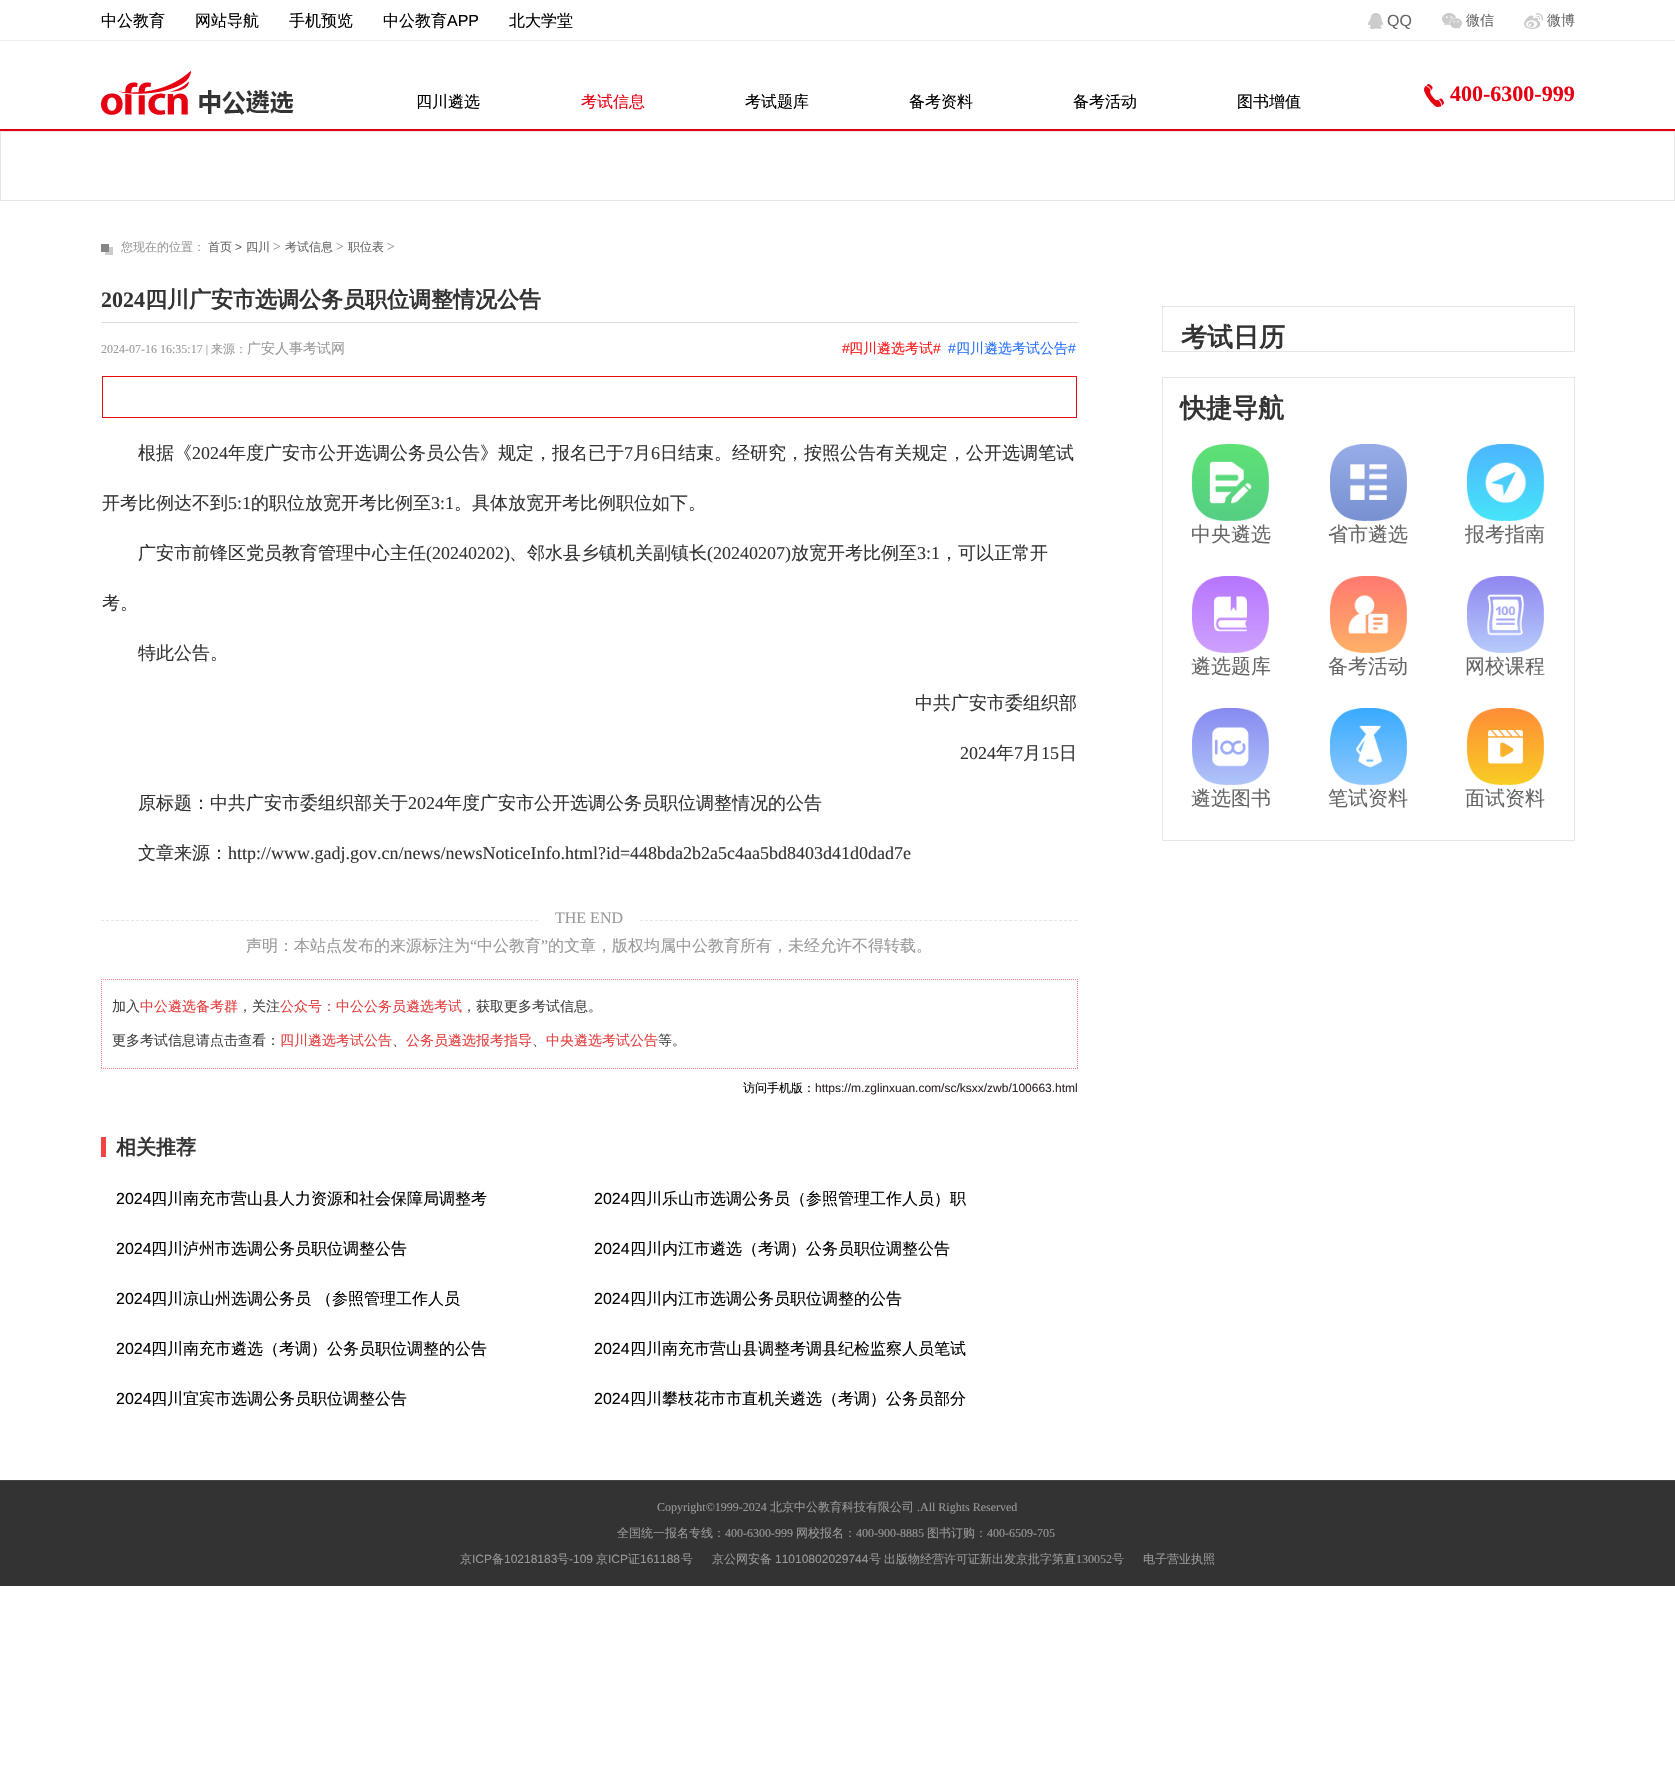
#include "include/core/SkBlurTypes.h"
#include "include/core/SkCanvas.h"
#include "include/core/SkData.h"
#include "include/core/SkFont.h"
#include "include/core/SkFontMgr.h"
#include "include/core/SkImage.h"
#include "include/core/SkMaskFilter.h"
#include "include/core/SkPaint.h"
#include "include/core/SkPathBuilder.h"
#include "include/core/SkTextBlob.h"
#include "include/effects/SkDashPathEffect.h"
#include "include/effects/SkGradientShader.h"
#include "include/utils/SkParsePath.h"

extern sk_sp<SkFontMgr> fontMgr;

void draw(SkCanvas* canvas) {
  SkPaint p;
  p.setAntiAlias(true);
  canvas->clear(SK_ColorWHITE);
  p.setColor(SkColorSetRGB(238, 238, 238));
  canvas->drawRect(SkRect::MakeLTRB(0, 40, 1675, 41), p);
  canvas->drawImageRect(SkImages::DeferredFromEncodedData(SkData::MakeFromFileName("images/1.png")), SkRect::MakeLTRB(1368, 13, 1383, 29), SkSamplingOptions());
  canvas->drawImageRect(SkImages::DeferredFromEncodedData(SkData::MakeFromFileName("images/2.png")), SkRect::MakeLTRB(1442, 13, 1462, 29), SkSamplingOptions());
  canvas->drawImageRect(SkImages::DeferredFromEncodedData(SkData::MakeFromFileName("images/3.png")), SkRect::MakeLTRB(1524, 13, 1543, 29), SkSamplingOptions());
  p.setColor(SkColorSetRGB(230, 0, 18));
  canvas->drawRect(SkRect::MakeLTRB(0, 129, 1675, 131), p);
  canvas->drawImageRect(SkImages::DeferredFromEncodedData(SkData::MakeFromFileName("images/4.png")), SkRect::MakeLTRB(101, 71, 294, 115), SkSamplingOptions());
  canvas->drawImageRect(SkImages::DeferredFromEncodedData(SkData::MakeFromFileName("images/5.png")), SkRect::MakeLTRB(1424, 84, 1444, 107), SkSamplingOptions());
  p.setStyle(SkPaint::kStroke_Style);
  p.setStrokeWidth(1);
  p.setColor(SkColorSetRGB(230, 230, 230));
  canvas->drawRect(SkRect::MakeLTRB(0.5f, 131.5f, 1674.5f, 200.5f), p);
  p.setStyle(SkPaint::kFill_Style);
  p.setColor(SkColorSetRGB(204, 204, 204));
  canvas->drawRect(SkRect::MakeLTRB(105, 247, 113, 255), p);
  p.setColor(SkColorSetRGB(133, 133, 133));
  canvas->drawRect(SkRect::MakeLTRB(101, 244, 109, 252), p);
  p.setColor(SkColorSetRGB(221, 221, 221));
  canvas->drawRect(SkRect::MakeLTRB(101, 322, 1078, 323), p);
  p.setStyle(SkPaint::kStroke_Style);
  p.setColor(SkColorSetRGB(234, 12, 21));
  canvas->drawRect(SkRect::MakeLTRB(102.5f, 376.5f, 1076.5f, 417.5f), p);
  p.setColor(SkColorSetRGB(230, 230, 230));
  p.setPathEffect(SkDashPathEffect::Make({{3, 1.99f}}, 0));
  canvas->drawPath(SkPathBuilder().moveTo(101, 920.5f).lineTo(1078, 920.5f).detach(), p);
  p.setPathEffect(nullptr);
  p.setStyle(SkPaint::kFill_Style);
  p.setColor(SK_ColorWHITE);
  canvas->drawRect(SkRect::MakeLTRB(540, 920, 638, 921), p);
  p.setStyle(SkPaint::kStroke_Style);
  p.setColor(SkColorSetRGB(244, 127, 127));
  p.setPathEffect(SkDashPathEffect::Make({{1, 1}}, 0));
  canvas->drawPath(SkPathBuilder().moveTo(101, 979.5f).lineTo(1078, 979.5f).detach(), p);
  p.setPathEffect(nullptr);
  p.setPathEffect(SkDashPathEffect::Make({{1, 1}}, 0));
  canvas->drawPath(SkPathBuilder().moveTo(1077.5f, 979).lineTo(1077.5f, 1069).detach(), p);
  p.setPathEffect(nullptr);
  p.setPathEffect(SkDashPathEffect::Make({{1, 1}}, 0));
  canvas->drawPath(SkPathBuilder().moveTo(101, 1068.5f).lineTo(1078, 1068.5f).detach(), p);
  p.setPathEffect(nullptr);
  p.setPathEffect(SkDashPathEffect::Make({{1, 1}}, 0));
  canvas->drawPath(SkPathBuilder().moveTo(101.5f, 979).lineTo(101.5f, 1069).detach(), p);
  p.setPathEffect(nullptr);
  p.setStyle(SkPaint::kFill_Style);
  p.setColor(SkColorSetRGB(242, 68, 67));
  canvas->drawRect(SkRect::MakeLTRB(101, 1137, 106, 1157), p);
  p.setStyle(SkPaint::kStroke_Style);
  p.setColor(SkColorSetRGB(230, 230, 230));
  canvas->drawRect(SkRect::MakeLTRB(1162.5f, 306.5f, 1574.5f, 351.5f), p);
  canvas->drawRect(SkRect::MakeLTRB(1162.5f, 377.5f, 1574.5f, 840.5f), p);
  canvas->drawImageRect(SkImages::DeferredFromEncodedData(SkData::MakeFromFileName("images/6.png")), SkRect::MakeLTRB(1192, 444, 1269, 521), SkSamplingOptions());
  canvas->drawImageRect(SkImages::DeferredFromEncodedData(SkData::MakeFromFileName("images/7.png")), SkRect::MakeLTRB(1330, 444, 1407, 521), SkSamplingOptions());
  canvas->drawImageRect(SkImages::DeferredFromEncodedData(SkData::MakeFromFileName("images/8.png")), SkRect::MakeLTRB(1467, 444, 1544, 521), SkSamplingOptions());
  canvas->drawImageRect(SkImages::DeferredFromEncodedData(SkData::MakeFromFileName("images/9.png")), SkRect::MakeLTRB(1192, 576, 1269, 653), SkSamplingOptions());
  canvas->drawImageRect(SkImages::DeferredFromEncodedData(SkData::MakeFromFileName("images/10.png")), SkRect::MakeLTRB(1330, 576, 1407, 653), SkSamplingOptions());
  canvas->drawImageRect(SkImages::DeferredFromEncodedData(SkData::MakeFromFileName("images/11.png")), SkRect::MakeLTRB(1467, 576, 1544, 653), SkSamplingOptions());
  canvas->drawImageRect(SkImages::DeferredFromEncodedData(SkData::MakeFromFileName("images/12.png")), SkRect::MakeLTRB(1192, 708, 1269, 785), SkSamplingOptions());
  canvas->drawImageRect(SkImages::DeferredFromEncodedData(SkData::MakeFromFileName("images/13.png")), SkRect::MakeLTRB(1330, 708, 1407, 785), SkSamplingOptions());
  canvas->drawImageRect(SkImages::DeferredFromEncodedData(SkData::MakeFromFileName("images/14.png")), SkRect::MakeLTRB(1467, 708, 1544, 785), SkSamplingOptions());
  p.setStyle(SkPaint::kFill_Style);
  p.setColor(SkColorSetRGB(51, 51, 51));
  canvas->drawRect(SkRect::MakeLTRB(0, 1481, 1675, 1586), p);
  p.setColor(SkColorSetRGB(69, 69, 69));
  canvas->drawRect(SkRect::MakeLTRB(0, 1480, 1675, 1481), p);
  SkFont font1(fontMgr->matchFamilyStyle("WenQuanYi Zen Hei", SkFontStyle(500, SkFontStyle::kNormal_Width, SkFontStyle::kUpright_Slant)), 16);
  font1.setSubpixel(true);
  p.setColor(SK_ColorBLACK);
  canvas->drawString("中公教育", 101, 26, font1, p);
  canvas->drawString("网站导航", 195, 26, font1, p);
  canvas->drawString("手机预览", 289, 26, font1, p);
  canvas->drawString("中公教育", 383, 26, font1, p);
  SkFont font2(fontMgr->matchFamilyStyle("Liberation Sans", SkFontStyle::Normal()), 16);
  font2.setSubpixel(true);
  canvas->drawString("APP", 447, 26, font2, p);
  canvas->drawString("北大学堂", 509, 26, font1, p);
  p.setColor(SkColorSetRGB(102, 102, 102));
  canvas->drawString("QQ", 1387, 26, font2, p);
  SkFont font3(fontMgr->matchFamilyStyle("WenQuanYi Zen Hei", SkFontStyle(500, SkFontStyle::kNormal_Width, SkFontStyle::kUpright_Slant)), 14);
  font3.setSubpixel(true);
  canvas->drawString("微信", 1466, 25, font3, p);
  canvas->drawString("微博", 1547, 25, font3, p);
  p.setColor(SK_ColorBLACK);
  canvas->drawString("四川遴选", 416, 107, font1, p);
  p.setColor(SkColorSetRGB(230, 0, 18));
  canvas->drawString("考试信息", 581, 107, font1, p);
  p.setColor(SK_ColorBLACK);
  canvas->drawString("考试题库", 745, 107, font1, p);
  canvas->drawString("备考资料", 909, 107, font1, p);
  canvas->drawString("备考活动", 1073, 107, font1, p);
  canvas->drawString("图书增值", 1237, 107, font1, p);
  SkFont font4(fontMgr->matchFamilyStyle("Liberation Serif", SkFontStyle::Bold()), 22);
  font4.setSubpixel(true);
  p.setColor(SkColorSetRGB(230, 0, 18));
  canvas->drawString("400-6300-999", 1450, 101, font4, p);
  SkFont font5(fontMgr->matchFamilyStyle("WenQuanYi Zen Hei", SkFontStyle(500, SkFontStyle::kNormal_Width, SkFontStyle::kUpright_Slant)), 12);
  font5.setSubpixel(true);
  p.setColor(SkColorSetRGB(153, 153, 153));
  canvas->drawString("您现在的位置：", 121, 251, font5, p);
  p.setColor(SkColorSetRGB(102, 102, 102));
  canvas->drawString("首页", 208, 251, font5, p);
  SkFont font6(fontMgr->matchFamilyStyle("Liberation Sans", SkFontStyle::Normal()), 12);
  font6.setSubpixel(true);
  canvas->drawString(">", 235, 251, font6, p);
  canvas->drawString("四川", 246, 251, font5, p);
  SkFont font7(fontMgr->matchFamilyStyle("Liberation Serif", SkFontStyle::Normal()), 14);
  font7.setSubpixel(true);
  p.setColor(SkColorSetRGB(136, 136, 136));
  canvas->drawString(">", 273, 251, font7, p);
  p.setColor(SkColorSetRGB(102, 102, 102));
  canvas->drawString("考试信息", 285, 251, font5, p);
  p.setColor(SkColorSetRGB(136, 136, 136));
  canvas->drawString(">", 336, 251, font7, p);
  p.setColor(SkColorSetRGB(102, 102, 102));
  canvas->drawString("职位表", 348, 251, font5, p);
  p.setColor(SkColorSetRGB(136, 136, 136));
  canvas->drawString(">", 387, 251, font7, p);
  p.setColor(SkColorSetRGB(51, 51, 51));
  canvas->drawString("2024", 101, 307, font4, p);
  SkFont font8(fontMgr->matchFamilyStyle("WenQuanYi Zen Hei", SkFontStyle::Bold()), 22);
  font8.setSubpixel(true);
  canvas->drawString("四川广安市选调公务员职位调整情况公告", 145, 307, font8, p);
  SkFont font9(fontMgr->matchFamilyStyle("Liberation Serif", SkFontStyle::Normal()), 12);
  font9.setSubpixel(true);
  p.setColor(SkColorSetRGB(153, 153, 153));
  canvas->drawString("2024-07-16 16:35:17 |", 101, 353, font9, p);
  canvas->drawString("来源：", 211, 353, font5, p);
  canvas->drawString("广安人事考试网", 247, 353, font3, p);
  SkFont font10(fontMgr->matchFamilyStyle("Liberation Sans", SkFontStyle::Normal()), 14);
  font10.setSubpixel(true);
  p.setColor(SkColorSetRGB(255, 22, 22));
  canvas->drawString("#", 842, 353, font10, p);
  canvas->drawString("四川遴选考试", 849, 353, font3, p);
  canvas->drawString("#", 933, 353, font10, p);
  p.setColor(SkColorSetRGB(38, 113, 255));
  canvas->drawString("#", 948, 353, font10, p);
  canvas->drawString("四川遴选考试公告", 956, 353, font3, p);
  canvas->drawString("#", 1068, 353, font10, p);
  SkFont font11(fontMgr->matchFamilyStyle("WenQuanYi Zen Hei", SkFontStyle(500, SkFontStyle::kNormal_Width, SkFontStyle::kUpright_Slant)), 18);
  font11.setSubpixel(true);
  p.setColor(SkColorSetRGB(51, 51, 51));
  canvas->drawString("根据《", 138, 459, font11, p);
  SkFont font12(fontMgr->matchFamilyStyle("Liberation Serif", SkFontStyle::Normal()), 18);
  font12.setSubpixel(true);
  canvas->drawString("2024", 192, 459, font12, p);
  canvas->drawString("年度广安市公开选调公务员公告》规定，报名已于", 228, 459, font11, p);
  canvas->drawString("7", 624, 459, font12, p);
  canvas->drawString("月", 633, 459, font11, p);
  canvas->drawString("6", 651, 459, font12, p);
  canvas->drawString("日结束。经研究，按照公告有关规定，公开选调笔试", 660, 459, font11, p);
  canvas->drawString("开考比例达不到", 102, 509, font11, p);
  canvas->drawString("5:1", 228, 509, font12, p);
  canvas->drawString("的职位放宽开考比例至", 251, 509, font11, p);
  canvas->drawString("3:1", 431, 509, font12, p);
  canvas->drawString("。具体放宽开考比例职位如下。", 454, 509, font11, p);
  canvas->drawString("广安市前锋区党员教育管理中心主任", 138, 559, font11, p);
  canvas->drawString("(20240202)", 426, 559, font12, p);
  canvas->drawString("、邻水县乡镇机关副镇长", 509, 559, font11, p);
  canvas->drawString("(20240207)", 707, 559, font12, p);
  canvas->drawString("放宽开考比例至", 791, 559, font11, p);
  canvas->drawString("3:1", 917, 559, font12, p);
  canvas->drawString("，可以正常开", 940, 559, font11, p);
  canvas->drawString("考。", 102, 609, font11, p);
  canvas->drawString("特此公告。", 138, 659, font11, p);
  canvas->drawString("中共广安市委组织部", 915, 709, font11, p);
  canvas->drawString("2024", 960, 759, font12, p);
  canvas->drawString("年", 996, 759, font11, p);
  canvas->drawString("7", 1014, 759, font12, p);
  canvas->drawString("月", 1023, 759, font11, p);
  canvas->drawString("15", 1041, 759, font12, p);
  canvas->drawString("日", 1059, 759, font11, p);
  canvas->drawString("原标题：中共广安市委组织部关于", 138, 809, font11, p);
  canvas->drawString("2024", 408, 809, font12, p);
  canvas->drawString("年度广安市公开选调公务员职位调整情况的公告", 444, 809, font11, p);
  canvas->drawString("文章来源：", 138, 859, font11, p);
  canvas->drawString("http://www.gadj.gov.cn/news/newsNoticeInfo.html?id=448bda2b2a5c4aa5bd8403d41d0dad7e", 228, 859, font12, p);
  SkFont font13(fontMgr->matchFamilyStyle("Liberation Serif", SkFontStyle::Normal()), 16);
  font13.setSubpixel(true);
  p.setColor(SkColorSetRGB(153, 153, 153));
  canvas->drawString("THE END", 555, 923, font13, p);
  canvas->drawString("声明：本站点发布的来源标注为", 246, 951, font1, p);
  canvas->drawString("“", 470, 951, font13, p);
  canvas->drawString("中公教育", 477, 951, font1, p);
  canvas->drawString("”", 541, 951, font13, p);
  canvas->drawString("的文章，版权均属中公教育所有，未经允许不得转载。", 548, 951, font1, p);
  p.setColor(SkColorSetRGB(65, 65, 65));
  canvas->drawString("加入", 112, 1011, font3, p);
  p.setColor(SkColorSetRGB(226, 63, 63));
  canvas->drawString("中公遴选备考群", 140, 1011, font3, p);
  p.setColor(SkColorSetRGB(65, 65, 65));
  canvas->drawString("，关注", 238, 1011, font3, p);
  p.setColor(SkColorSetRGB(226, 63, 63));
  canvas->drawString("公众号：中公公务员遴选考试", 280, 1011, font3, p);
  p.setColor(SkColorSetRGB(65, 65, 65));
  canvas->drawString("，获取更多考试信息。", 462, 1011, font3, p);
  canvas->drawString("更多考试信息请点击查看：", 112, 1045, font3, p);
  p.setColor(SkColorSetRGB(226, 63, 63));
  canvas->drawString("四川遴选考试公告", 280, 1045, font3, p);
  p.setColor(SkColorSetRGB(65, 65, 65));
  canvas->drawString("、", 392, 1045, font3, p);
  p.setColor(SkColorSetRGB(226, 63, 63));
  canvas->drawString("公务员遴选报考指导", 406, 1045, font3, p);
  p.setColor(SkColorSetRGB(65, 65, 65));
  canvas->drawString("、", 532, 1045, font3, p);
  p.setColor(SkColorSetRGB(226, 63, 63));
  canvas->drawString("中央遴选考试公告", 546, 1045, font3, p);
  p.setColor(SkColorSetRGB(65, 65, 65));
  canvas->drawString("等。", 658, 1045, font3, p);
  p.setColor(SK_ColorBLACK);
  canvas->drawString("访问手机版：", 743, 1092, font5, p);
  p.setColor(SkColorSetRGB(49, 39, 39));
  canvas->drawString("https://m.zglinxuan.com/sc/ksxx/zwb/100663.html", 815, 1092, font6, p);
  SkFont font14(fontMgr->matchFamilyStyle("WenQuanYi Zen Hei", SkFontStyle::Bold()), 20);
  font14.setSubpixel(true);
  p.setColor(SkColorSetRGB(51, 51, 51));
  canvas->drawString("相关推荐", 116, 1154, font14, p);
  p.setColor(SK_ColorBLACK);
  canvas->drawString("2024", 116, 1204, font2, p);
  canvas->drawString("四川南充市营山县人力资源和社会保障局调整考", 151, 1204, font1, p);
  canvas->drawString("2024", 594, 1204, font2, p);
  canvas->drawString("四川乐山市选调公务员（参照管理工作人员）职", 630, 1204, font1, p);
  canvas->drawString("2024", 116, 1254, font2, p);
  canvas->drawString("四川泸州市选调公务员职位调整公告", 151, 1254, font1, p);
  canvas->drawString("2024", 594, 1254, font2, p);
  canvas->drawString("四川内江市遴选（考调）公务员职位调整公告", 630, 1254, font1, p);
  canvas->drawString("2024", 116, 1304, font2, p);
  canvas->drawString("四川凉山州选调公务员", 151, 1304, font1, p);
  canvas->drawString("（参照管理工作人员", 316, 1304, font1, p);
  canvas->drawString("2024", 594, 1304, font2, p);
  canvas->drawString("四川内江市选调公务员职位调整的公告", 630, 1304, font1, p);
  canvas->drawString("2024", 116, 1354, font2, p);
  canvas->drawString("四川南充市遴选（考调）公务员职位调整的公告", 151, 1354, font1, p);
  canvas->drawString("2024", 594, 1354, font2, p);
  canvas->drawString("四川南充市营山县调整考调县纪检监察人员笔试", 630, 1354, font1, p);
  canvas->drawString("2024", 116, 1404, font2, p);
  canvas->drawString("四川宜宾市选调公务员职位调整公告", 151, 1404, font1, p);
  canvas->drawString("2024", 594, 1404, font2, p);
  canvas->drawString("四川攀枝花市市直机关遴选（考调）公务员部分", 630, 1404, font1, p);
  SkFont font15(fontMgr->matchFamilyStyle("WenQuanYi Zen Hei", SkFontStyle::Bold()), 26);
  font15.setSubpixel(true);
  p.setColor(SkColorSetRGB(51, 51, 51));
  canvas->drawString("考试日历", 1181, 346, font15, p);
  canvas->drawString("快捷导航", 1180, 417, font15, p);
  SkFont font16(fontMgr->matchFamilyStyle("WenQuanYi Zen Hei", SkFontStyle(500, SkFontStyle::kNormal_Width, SkFontStyle::kUpright_Slant)), 20);
  font16.setSubpixel(true);
  p.setColor(SkColorSetRGB(102, 102, 102));
  canvas->drawString("中央遴选", 1191, 541, font16, p);
  canvas->drawString("省市遴选", 1328, 541, font16, p);
  canvas->drawString("报考指南", 1465, 541, font16, p);
  canvas->drawString("遴选题库", 1191, 673, font16, p);
  canvas->drawString("备考活动", 1328, 673, font16, p);
  canvas->drawString("网校课程", 1465, 673, font16, p);
  canvas->drawString("遴选图书", 1191, 805, font16, p);
  canvas->drawString("笔试资料", 1328, 805, font16, p);
  canvas->drawString("面试资料", 1465, 805, font16, p);
  p.setColor(SkColorSetRGB(153, 153, 153));
  canvas->drawString("Copyright©1999-2024", 657, 1511, font9, p);
  canvas->drawString("北京中公教育科技有限公司", 770, 1511, font5, p);
  canvas->drawString(".All Rights Reserved", 917, 1511, font9, p);
  canvas->drawString("全国统一报名专线：", 617, 1537, font5, p);
  canvas->drawString("400-6300-999", 725, 1537, font9, p);
  canvas->drawString("网校报名：", 796, 1537, font5, p);
  canvas->drawString("400-900-8885", 856, 1537, font9, p);
  canvas->drawString("图书订购：", 927, 1537, font5, p);
  canvas->drawString("400-6509-705", 987, 1537, font9, p);
  canvas->drawString("京", 460, 1563, font5, p);
  canvas->drawString("ICP", 472, 1563, font6, p);
  canvas->drawString("备", 492, 1563, font5, p);
  canvas->drawString("10218183", 504, 1563, font6, p);
  canvas->drawString("号", 557, 1563, font5, p);
  canvas->drawString("-109", 569, 1563, font6, p);
  canvas->drawString("京", 596, 1563, font5, p);
  canvas->drawString("ICP", 608, 1563, font6, p);
  canvas->drawString("证", 628, 1563, font5, p);
  canvas->drawString("161188", 640, 1563, font6, p);
  canvas->drawString("号", 681, 1563, font5, p);
  canvas->drawString("京公网安备", 712, 1563, font5, p);
  canvas->drawString("11010802029744", 775, 1563, font6, p);
  canvas->drawString("号", 869, 1563, font5, p);
  canvas->drawString("出版物经营许可证新出发京批字第直", 884, 1563, font5, p);
  canvas->drawString("130052", 1076, 1563, font9, p);
  canvas->drawString("号", 1112, 1563, font5, p);
  canvas->drawString("电子营业执照", 1143, 1563, font5, p);
}
